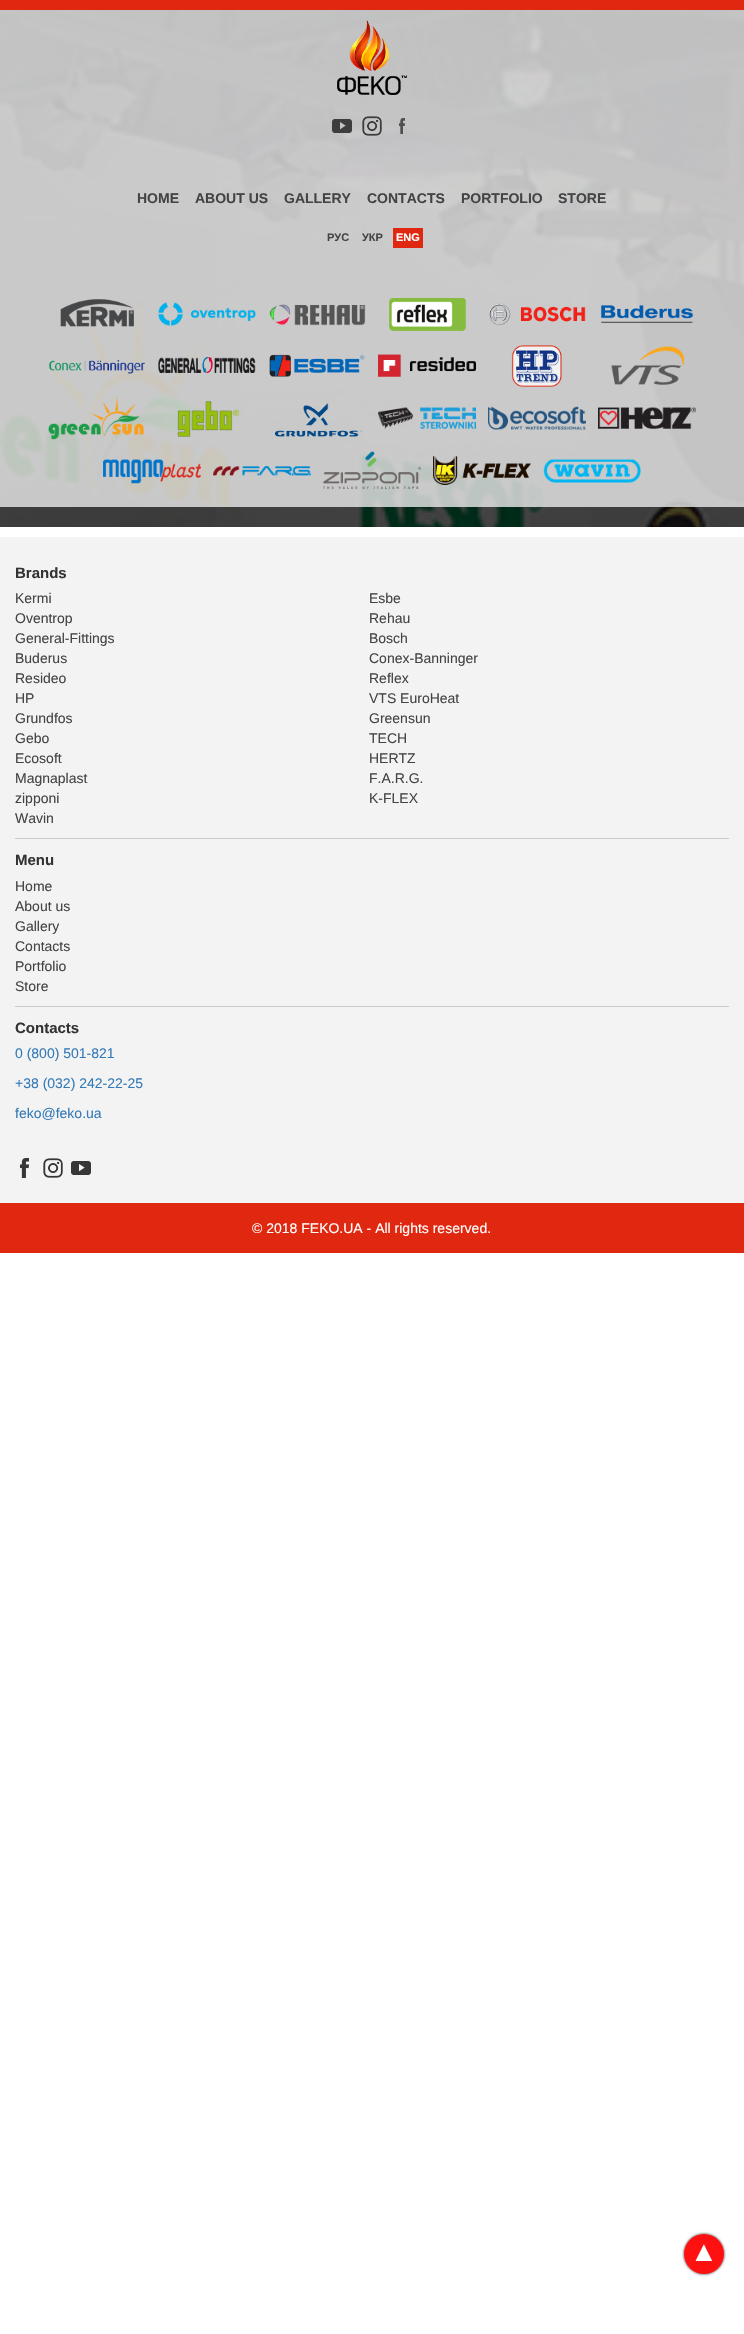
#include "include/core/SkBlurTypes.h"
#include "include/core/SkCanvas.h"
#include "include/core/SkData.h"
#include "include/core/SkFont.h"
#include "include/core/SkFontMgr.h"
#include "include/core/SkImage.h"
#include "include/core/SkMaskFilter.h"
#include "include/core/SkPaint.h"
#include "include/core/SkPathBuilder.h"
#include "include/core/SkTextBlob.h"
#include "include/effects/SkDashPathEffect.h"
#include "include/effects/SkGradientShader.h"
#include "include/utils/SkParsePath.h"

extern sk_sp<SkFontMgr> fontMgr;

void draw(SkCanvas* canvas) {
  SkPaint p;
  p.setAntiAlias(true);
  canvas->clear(SK_ColorWHITE);
  canvas->drawImageRect(SkImages::DeferredFromEncodedData(SkData::MakeFromFileName("images/1.png")), SkRect::MakeLTRB(0, 10, 744, 527), SkSamplingOptions());
  p.setColor(SkColorSetARGB(204, 235, 235, 235));
  canvas->drawRect(SkRect::MakeLTRB(0, 10, 744, 278), p);
  p.setColor(SkColorSetRGB(224, 40, 16));
  canvas->drawRect(SkRect::MakeLTRB(0, 0, 744, 10), p);
  canvas->drawImageRect(SkImages::DeferredFromEncodedData(SkData::MakeFromFileName("images/2.png")), SkRect::MakeLTRB(337, 20, 407, 95), SkSamplingOptions());
  canvas->drawImageRect(SkImages::DeferredFromEncodedData(SkData::MakeFromFileName("images/3.png")), SkRect::MakeLTRB(332, 119, 352, 133), SkSamplingOptions());
  canvas->drawImageRect(SkImages::DeferredFromEncodedData(SkData::MakeFromFileName("images/4.png")), SkRect::MakeLTRB(362, 116, 382, 136), SkSamplingOptions());
  canvas->drawImageRect(SkImages::DeferredFromEncodedData(SkData::MakeFromFileName("images/5.png")), SkRect::MakeLTRB(399, 118, 405, 134), SkSamplingOptions());
  canvas->drawRect(SkRect::MakeLTRB(393, 228, 423, 248), p);
  p.setColor(SkColorSetARGB(204, 235, 235, 235));
  canvas->drawRect(SkRect::MakeLTRB(0, 278, 744, 507), p);
  canvas->drawImageRect(SkImages::DeferredFromEncodedData(SkData::MakeFromFileName("images/6.png")), SkRect::MakeLTRB(60, 299, 134, 327), SkSamplingOptions());
  canvas->drawImageRect(SkImages::DeferredFromEncodedData(SkData::MakeFromFileName("images/7.png")), SkRect::MakeLTRB(158, 302, 256, 326), SkSamplingOptions());
  canvas->drawImageRect(SkImages::DeferredFromEncodedData(SkData::MakeFromFileName("images/8.png")), SkRect::MakeLTRB(269, 304, 366, 326), SkSamplingOptions());
  canvas->drawImageRect(SkImages::DeferredFromEncodedData(SkData::MakeFromFileName("images/9.png")), SkRect::MakeLTRB(389, 298, 467, 331), SkSamplingOptions());
  canvas->drawImageRect(SkImages::DeferredFromEncodedData(SkData::MakeFromFileName("images/10.png")), SkRect::MakeLTRB(489, 303, 586, 325), SkSamplingOptions());
  canvas->drawImageRect(SkImages::DeferredFromEncodedData(SkData::MakeFromFileName("images/11.png")), SkRect::MakeLTRB(600, 305, 694, 323), SkSamplingOptions());
  canvas->drawImageRect(SkImages::DeferredFromEncodedData(SkData::MakeFromFileName("images/12.png")), SkRect::MakeLTRB(48, 359, 145, 374), SkSamplingOptions());
  canvas->drawImageRect(SkImages::DeferredFromEncodedData(SkData::MakeFromFileName("images/13.png")), SkRect::MakeLTRB(158, 357, 256, 373), SkSamplingOptions());
  canvas->drawImageRect(SkImages::DeferredFromEncodedData(SkData::MakeFromFileName("images/14.png")), SkRect::MakeLTRB(269, 354, 365, 377), SkSamplingOptions());
  canvas->drawImageRect(SkImages::DeferredFromEncodedData(SkData::MakeFromFileName("images/15.png")), SkRect::MakeLTRB(378, 354, 476, 377), SkSamplingOptions());
  canvas->drawImageRect(SkImages::DeferredFromEncodedData(SkData::MakeFromFileName("images/16.png")), SkRect::MakeLTRB(511, 345, 562, 387), SkSamplingOptions());
  canvas->drawImageRect(SkImages::DeferredFromEncodedData(SkData::MakeFromFileName("images/17.png")), SkRect::MakeLTRB(611, 346, 684, 385), SkSamplingOptions());
  canvas->drawImageRect(SkImages::DeferredFromEncodedData(SkData::MakeFromFileName("images/18.png")), SkRect::MakeLTRB(48, 397, 144, 440), SkSamplingOptions());
  canvas->drawImageRect(SkImages::DeferredFromEncodedData(SkData::MakeFromFileName("images/19.png")), SkRect::MakeLTRB(177, 401, 240, 437), SkSamplingOptions());
  canvas->drawImageRect(SkImages::DeferredFromEncodedData(SkData::MakeFromFileName("images/20.png")), SkRect::MakeLTRB(275, 403, 362, 437), SkSamplingOptions());
  canvas->drawImageRect(SkImages::DeferredFromEncodedData(SkData::MakeFromFileName("images/21.png")), SkRect::MakeLTRB(378, 407, 476, 429), SkSamplingOptions());
  canvas->drawImageRect(SkImages::DeferredFromEncodedData(SkData::MakeFromFileName("images/22.png")), SkRect::MakeLTRB(488, 406, 586, 430), SkSamplingOptions());
  canvas->drawImageRect(SkImages::DeferredFromEncodedData(SkData::MakeFromFileName("images/23.png")), SkRect::MakeLTRB(598, 407, 696, 429), SkSamplingOptions());
  canvas->drawImageRect(SkImages::DeferredFromEncodedData(SkData::MakeFromFileName("images/24.png")), SkRect::MakeLTRB(103, 459, 201, 484), SkSamplingOptions());
  canvas->drawImageRect(SkImages::DeferredFromEncodedData(SkData::MakeFromFileName("images/25.png")), SkRect::MakeLTRB(213, 466, 311, 476), SkSamplingOptions());
  canvas->drawImageRect(SkImages::DeferredFromEncodedData(SkData::MakeFromFileName("images/26.png")), SkRect::MakeLTRB(323, 451, 421, 489), SkSamplingOptions());
  canvas->drawImageRect(SkImages::DeferredFromEncodedData(SkData::MakeFromFileName("images/27.png")), SkRect::MakeLTRB(433, 456, 531, 485), SkSamplingOptions());
  canvas->drawImageRect(SkImages::DeferredFromEncodedData(SkData::MakeFromFileName("images/28.png")), SkRect::MakeLTRB(543, 459, 641, 483), SkSamplingOptions());
  p.setColor(SkColorSetRGB(243, 243, 243));
  canvas->drawRect(SkRect::MakeLTRB(0, 537, 744, 1203), p);
  p.setColor(SkColorSetRGB(204, 204, 204));
  canvas->drawRect(SkRect::MakeLTRB(15, 838, 729, 839), p);
  canvas->drawRect(SkRect::MakeLTRB(15, 1006, 729, 1007), p);
  canvas->drawImageRect(SkImages::DeferredFromEncodedData(SkData::MakeFromFileName("images/29.png")), SkRect::MakeLTRB(20, 1158, 29, 1178), SkSamplingOptions());
  canvas->drawImageRect(SkImages::DeferredFromEncodedData(SkData::MakeFromFileName("images/30.png")), SkRect::MakeLTRB(43, 1158, 63, 1178), SkSamplingOptions());
  canvas->drawImageRect(SkImages::DeferredFromEncodedData(SkData::MakeFromFileName("images/31.png")), SkRect::MakeLTRB(71, 1161, 91, 1175), SkSamplingOptions());
  p.setColor(SkColorSetRGB(224, 40, 16));
  canvas->drawRect(SkRect::MakeLTRB(0, 1203, 744, 1253), p);
  p.setColor(SkColorSetARGB(102, 0, 0, 0));
  p.setMaskFilter(SkMaskFilter::MakeBlur(kNormal_SkBlurStyle, 1));
  canvas->drawRoundRect(SkRect::MakeLTRB(683, 2233, 725, 2275), 21, 21, p);
  p.setMaskFilter(nullptr);
  p.setColor(SkColorSetRGB(255, 17, 17));
  canvas->drawCircle(704, 2254, 20, p);
  SkFont font1(fontMgr->matchFamilyStyle("Liberation Sans", SkFontStyle::Bold()), 14);
  font1.setSubpixel(true);
  p.setColor(SkColorSetRGB(68, 68, 68));
  canvas->drawString("HOME", 137, 203, font1, p);
  canvas->drawString("ABOUT US", 195, 203, font1, p);
  canvas->drawString("GALLERY", 284, 203, font1, p);
  canvas->drawString("CONTACTS", 367, 203, font1, p);
  canvas->drawString("PORTFOLIO", 461, 203, font1, p);
  canvas->drawString("STORE", 558, 203, font1, p);
  SkFont font2(fontMgr->matchFamilyStyle("Liberation Sans", SkFontStyle::Bold()), 11);
  font2.setSubpixel(true);
  canvas->drawString("РУС", 327, 241, font2, p);
  canvas->drawString("УКР", 362, 241, font2, p);
  p.setColor(SK_ColorWHITE);
  canvas->drawString("ENG", 396, 241, font2, p);
  SkFont font3(fontMgr->matchFamilyStyle("Liberation Sans", SkFontStyle::Bold()), 15);
  font3.setSubpixel(true);
  p.setColor(SkColorSetRGB(51, 51, 51));
  canvas->drawString("Brands", 15, 578, font3, p);
  SkFont font4(fontMgr->matchFamilyStyle("Liberation Sans", SkFontStyle::Normal()), 14);
  font4.setSubpixel(true);
  p.setColor(SkColorSetRGB(68, 68, 68));
  canvas->drawString("Kermi", 15, 603, font4, p);
  canvas->drawString("Esbe", 369, 603, font4, p);
  canvas->drawString("Oventrop", 15, 623, font4, p);
  canvas->drawString("Rehau", 369, 623, font4, p);
  canvas->drawString("General-Fittings", 15, 643, font4, p);
  canvas->drawString("Bosch", 369, 643, font4, p);
  canvas->drawString("Buderus", 15, 663, font4, p);
  canvas->drawString("Conex-Banninger", 369, 663, font4, p);
  canvas->drawString("Resideo", 15, 683, font4, p);
  canvas->drawString("Reflex", 369, 683, font4, p);
  canvas->drawString("HP", 15, 703, font4, p);
  canvas->drawString("VTS EuroHeat", 369, 703, font4, p);
  canvas->drawString("Grundfos", 15, 723, font4, p);
  canvas->drawString("Greensun", 369, 723, font4, p);
  canvas->drawString("Gebo", 15, 743, font4, p);
  canvas->drawString("TECH", 369, 743, font4, p);
  canvas->drawString("Ecosoft", 15, 763, font4, p);
  canvas->drawString("HERTZ", 369, 763, font4, p);
  canvas->drawString("Magnaplast", 15, 783, font4, p);
  canvas->drawString("F.A.R.G.", 369, 783, font4, p);
  canvas->drawString("zipponi", 15, 803, font4, p);
  canvas->drawString("K-FLEX", 369, 803, font4, p);
  canvas->drawString("Wavin", 15, 823, font4, p);
  p.setColor(SkColorSetRGB(51, 51, 51));
  canvas->drawString("Menu", 15, 865, font3, p);
  p.setColor(SkColorSetRGB(68, 68, 68));
  canvas->drawString("Home", 15, 891, font4, p);
  canvas->drawString("About us", 15, 911, font4, p);
  canvas->drawString("Gallery", 15, 931, font4, p);
  canvas->drawString("Contacts", 15, 951, font4, p);
  canvas->drawString("Portfolio", 15, 971, font4, p);
  canvas->drawString("Store", 15, 991, font4, p);
  p.setColor(SkColorSetRGB(51, 51, 51));
  canvas->drawString("Contacts", 15, 1033, font3, p);
  p.setColor(SkColorSetRGB(51, 122, 183));
  canvas->drawString("0 (800) 501-821", 15, 1058, font4, p);
  canvas->drawString("+38 (032) 242-22-25", 15, 1088, font4, p);
  canvas->drawString("feko@feko.ua", 15, 1118, font4, p);
  p.setColor(SK_ColorWHITE);
  canvas->drawString("© 2018 FEKO.UA - All rights reserved.", 252, 1233, font4, p);
  SkFont font5(fontMgr->matchFamilyStyle("Liberation Sans", SkFontStyle::Normal()), 28);
  font5.setSubpixel(true);
  canvas->drawString("▲", 690, 2261, font5, p);
}
